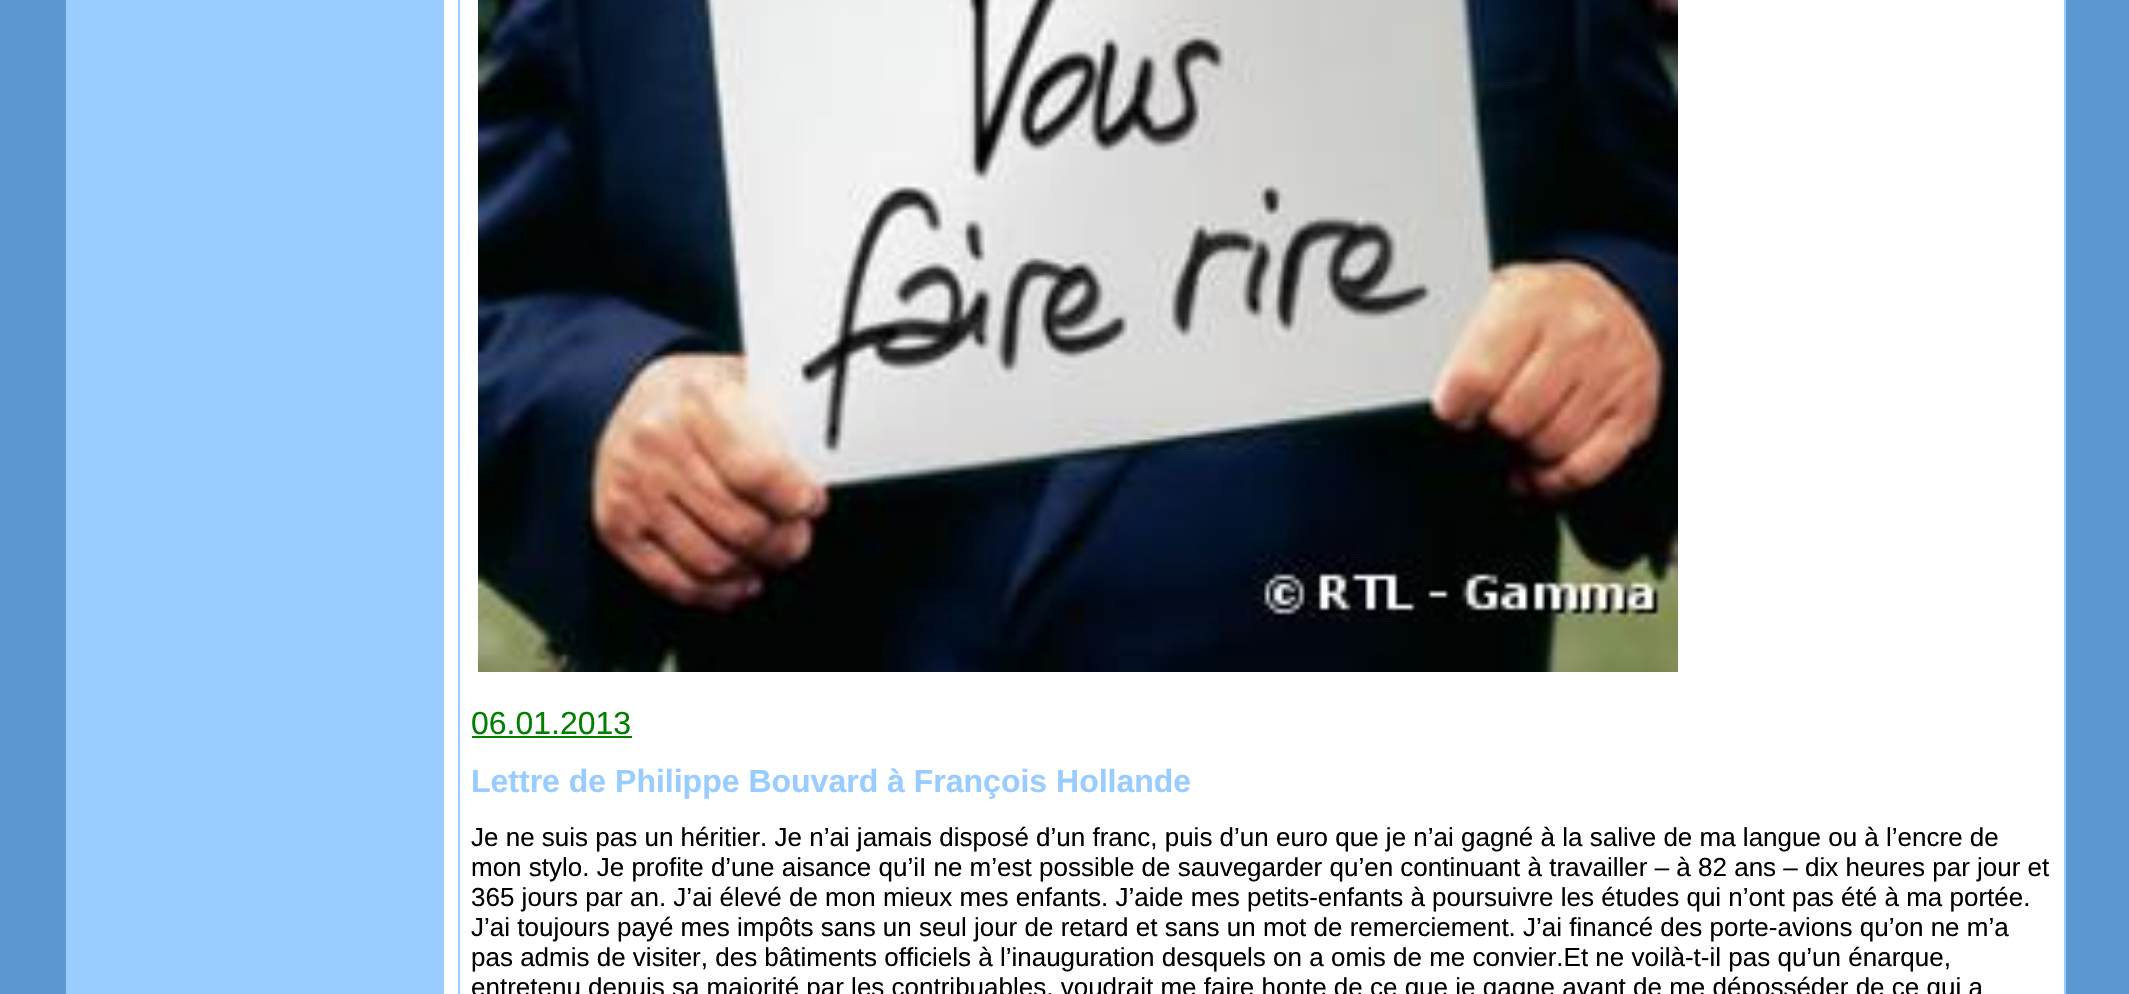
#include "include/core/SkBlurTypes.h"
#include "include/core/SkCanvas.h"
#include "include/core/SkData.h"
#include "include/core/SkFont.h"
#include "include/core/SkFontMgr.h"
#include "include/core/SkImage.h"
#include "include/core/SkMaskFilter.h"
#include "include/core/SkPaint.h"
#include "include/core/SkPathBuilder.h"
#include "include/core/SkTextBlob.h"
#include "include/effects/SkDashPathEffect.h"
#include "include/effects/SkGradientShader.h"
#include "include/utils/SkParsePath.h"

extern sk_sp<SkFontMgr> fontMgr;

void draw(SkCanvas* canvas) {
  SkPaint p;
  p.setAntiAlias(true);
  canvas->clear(SkColorSetRGB(92, 153, 210));
  p.setColor(SkColorSetRGB(153, 204, 255));
  canvas->drawRect(SkRect::MakeLTRB(66, 0, 444, 994), p);
  p.setColor(SK_ColorWHITE);
  canvas->drawRect(SkRect::MakeLTRB(444, 0, 458, 994), p);
  p.setColor(SkColorSetRGB(153, 204, 255));
  canvas->drawRect(SkRect::MakeLTRB(458, 0, 2066, 994), p);
  p.setColor(SK_ColorWHITE);
  canvas->drawRect(SkRect::MakeLTRB(460, 0, 2064, 994), p);
  canvas->drawImageRect(SkImages::DeferredFromEncodedData(SkData::MakeFromFileName("images/1.png")), SkRect::MakeLTRB(478, 0, 1678, 672), SkSamplingOptions());
  p.setColor(SkColorSetRGB(0, 128, 0));
  canvas->drawRect(SkRect::MakeLTRB(472, 736, 632, 738), p);
  SkFont font1(fontMgr->matchFamilyStyle("Liberation Sans", SkFontStyle::Normal()), 32);
  font1.setSubpixel(true);
  canvas->drawString("06.01.2013", 471, 734, font1, p);
  SkFont font2(fontMgr->matchFamilyStyle("Liberation Sans", SkFontStyle::Bold()), 32);
  font2.setSubpixel(true);
  p.setColor(SkColorSetRGB(153, 204, 255));
  canvas->drawString("Lettre de Philippe Bouvard à François Hollande", 471, 792, font2, p);
  SkFont font3(fontMgr->matchFamilyStyle("Liberation Sans", SkFontStyle::Normal()), 26);
  font3.setSubpixel(true);
  p.setColor(SK_ColorBLACK);
  canvas->drawString("Je ne suis pas un héritier. Je n’ai jamais disposé d’un franc, puis d’un euro que je n’ai gagné à la salive de ma langue ou à l’encre de", 471, 846, font3, p);
  canvas->drawString("mon stylo. Je profite d’une aisance qu’iI ne m’est possible de sauvegarder qu’en continuant à travailler – à 82 ans – dix heures par jour et", 471, 876, font3, p);
  canvas->drawString("365 jours par an. J’ai élevé de mon mieux mes enfants. J’aide mes petits-enfants à poursuivre les études qui n’ont pas été à ma portée.", 471, 906, font3, p);
  canvas->drawString("J’ai toujours payé mes impôts sans un seul jour de retard et sans un mot de remerciement. J’ai financé des porte-avions qu’on ne m’a", 471, 936, font3, p);
  canvas->drawString("pas admis de visiter, des bâtiments officiels à l’inauguration desquels on a omis de me convier.Et ne voilà-t-il pas qu’un énarque,", 471, 966, font3, p);
  canvas->drawString("entretenu depuis sa majorité par les contribuables, voudrait me faire honte de ce que je gagne avant de me déposséder de ce qui a", 471, 996, font3, p);
}
